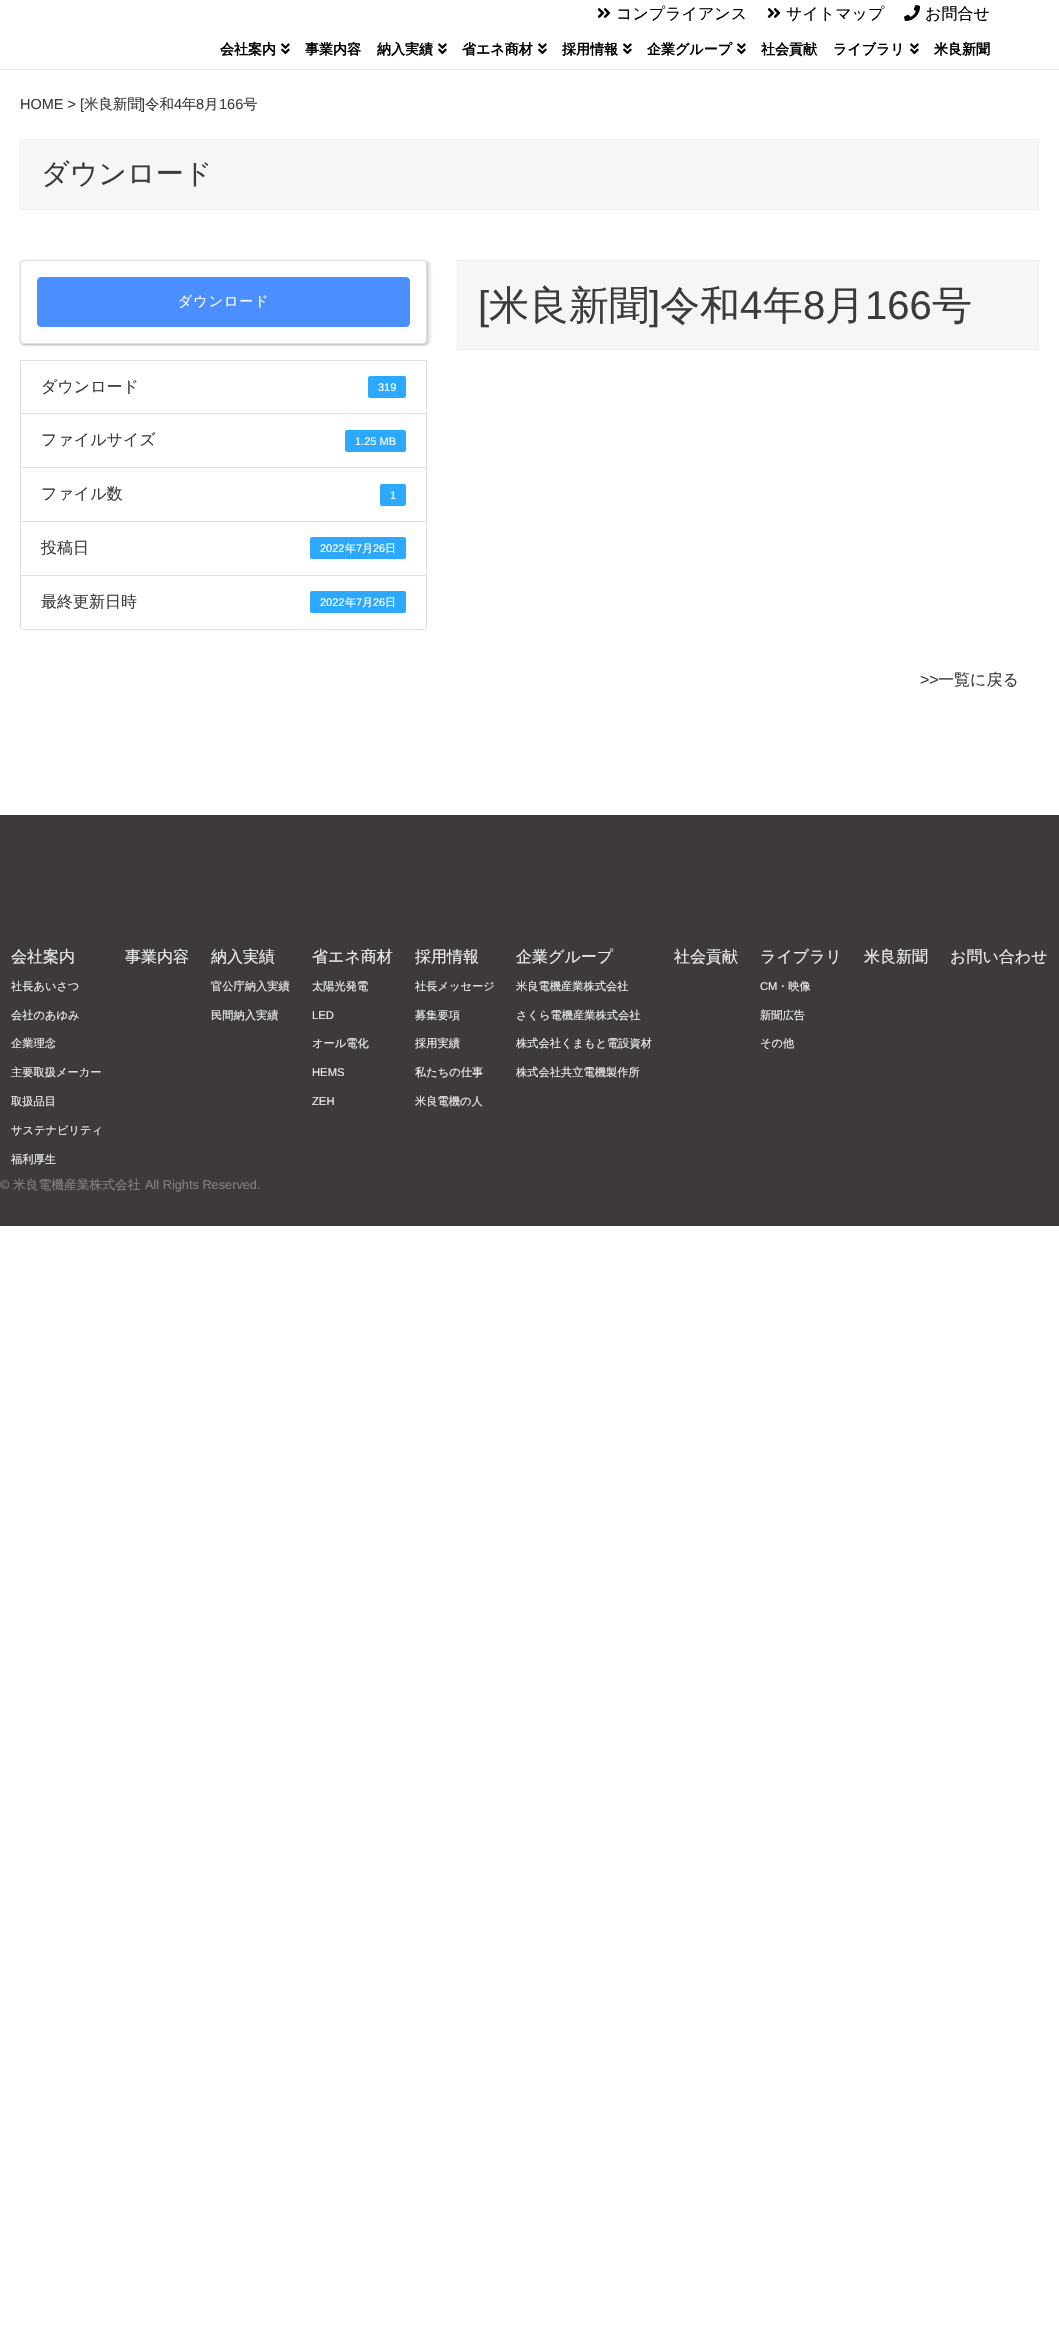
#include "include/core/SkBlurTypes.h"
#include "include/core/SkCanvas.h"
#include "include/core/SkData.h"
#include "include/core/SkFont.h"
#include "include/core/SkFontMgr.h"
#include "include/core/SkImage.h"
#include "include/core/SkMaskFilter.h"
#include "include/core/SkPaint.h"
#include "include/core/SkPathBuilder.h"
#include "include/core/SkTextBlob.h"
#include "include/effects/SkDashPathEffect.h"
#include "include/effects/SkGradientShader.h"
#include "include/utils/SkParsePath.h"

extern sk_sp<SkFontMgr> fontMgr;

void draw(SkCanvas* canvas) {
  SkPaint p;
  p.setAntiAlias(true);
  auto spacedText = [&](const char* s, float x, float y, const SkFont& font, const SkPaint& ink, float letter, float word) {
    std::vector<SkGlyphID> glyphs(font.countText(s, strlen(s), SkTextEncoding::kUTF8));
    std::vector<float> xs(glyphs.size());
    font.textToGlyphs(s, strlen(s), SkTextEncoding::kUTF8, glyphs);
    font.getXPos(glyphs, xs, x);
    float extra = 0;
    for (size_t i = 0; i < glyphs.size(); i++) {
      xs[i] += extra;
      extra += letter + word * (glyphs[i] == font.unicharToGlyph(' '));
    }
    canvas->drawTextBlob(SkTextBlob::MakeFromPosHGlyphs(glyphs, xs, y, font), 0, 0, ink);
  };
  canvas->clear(SK_ColorWHITE);
  p.setColor(SkColorSetRGB(230, 230, 230));
  canvas->drawRect(SkRect::MakeLTRB(0, 69, 1059, 70), p);
  canvas->drawImageRect(SkImages::DeferredFromEncodedData(SkData::MakeFromFileName("images/1.png")), SkRect::MakeLTRB(597, 8, 611, 18), SkSamplingOptions());
  canvas->drawImageRect(SkImages::DeferredFromEncodedData(SkData::MakeFromFileName("images/1.png")), SkRect::MakeLTRB(767, 8, 781, 18), SkSamplingOptions());
  canvas->drawImageRect(SkImages::DeferredFromEncodedData(SkData::MakeFromFileName("images/2.png")), SkRect::MakeLTRB(904, 5, 920, 21), SkSamplingOptions());
  canvas->drawImageRect(SkImages::DeferredFromEncodedData(SkData::MakeFromFileName("images/3.png")), SkRect::MakeLTRB(281, 43, 290, 55), SkSamplingOptions());
  canvas->drawImageRect(SkImages::DeferredFromEncodedData(SkData::MakeFromFileName("images/3.png")), SkRect::MakeLTRB(438, 43, 447, 55), SkSamplingOptions());
  canvas->drawImageRect(SkImages::DeferredFromEncodedData(SkData::MakeFromFileName("images/3.png")), SkRect::MakeLTRB(538, 43, 547, 55), SkSamplingOptions());
  canvas->drawImageRect(SkImages::DeferredFromEncodedData(SkData::MakeFromFileName("images/3.png")), SkRect::MakeLTRB(623, 43, 632, 55), SkSamplingOptions());
  canvas->drawImageRect(SkImages::DeferredFromEncodedData(SkData::MakeFromFileName("images/3.png")), SkRect::MakeLTRB(737, 43, 746, 55), SkSamplingOptions());
  canvas->drawImageRect(SkImages::DeferredFromEncodedData(SkData::MakeFromFileName("images/3.png")), SkRect::MakeLTRB(910, 43, 919, 55), SkSamplingOptions());
  p.setColor(SkColorSetRGB(246, 246, 246));
  canvas->drawRect(SkRect::MakeLTRB(22, 141, 1038, 209), p);
  canvas->save();
  canvas->clipRect(SkRect::MakeLTRB(21, 140, 1038, 209));
  p.setColor(SkColorSetRGB(251, 251, 251));
  canvas->drawPath(SkPathBuilder(SkPathFillType::kEvenOdd).moveTo(-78, 41).lineTo(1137, 41).lineTo(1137, 308).lineTo(-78, 308).close().moveTo(22, 141).lineTo(1039, 141).lineTo(1039, 210).lineTo(22, 210).close().detach(), p);
  canvas->restore();
  p.setStyle(SkPaint::kStroke_Style);
  p.setStrokeWidth(1);
  p.setColor(SkColorSetRGB(238, 238, 238));
  canvas->drawRect(SkRect::MakeLTRB(20.5f, 139.5f, 1038.5f, 209.5f), p);
  p.setStyle(SkPaint::kFill_Style);
  p.setColor(SkColorSetARGB(61, 0, 0, 0));
  p.setMaskFilter(SkMaskFilter::MakeBlur(kNormal_SkBlurStyle, 1));
  canvas->drawRoundRect(SkRect::MakeLTRB(20, 261, 427, 345), 4, 4, p);
  p.setMaskFilter(nullptr);
  p.setColor(SkColorSetARGB(31, 0, 0, 0));
  p.setMaskFilter(SkMaskFilter::MakeBlur(kNormal_SkBlurStyle, 1.5f));
  canvas->drawRoundRect(SkRect::MakeLTRB(23, 261, 430, 345), 4, 4, p);
  p.setMaskFilter(nullptr);
  p.setColor(SK_ColorWHITE);
  canvas->drawRoundRect(SkRect::MakeLTRB(20, 260, 427, 344), 4, 4, p);
  p.setStyle(SkPaint::kStroke_Style);
  p.setColor(SkColorSetARGB(31, 0, 0, 0));
  canvas->drawRoundRect(SkRect::MakeLTRB(20.5f, 260.5f, 426.5f, 343.5f), 3.5f, 3.5f, p);
  p.setStyle(SkPaint::kFill_Style);
  p.setColor(SkColorSetRGB(74, 142, 255));
  canvas->drawRoundRect(SkRect::MakeLTRB(37.5f, 277.5f, 409.5f, 326.5f), 3.5f, 3.5f, p);
  p.setStyle(SkPaint::kStroke_Style);
  canvas->drawRoundRect(SkRect::MakeLTRB(37.5f, 277.5f, 409.5f, 326.5f), 3.5f, 3.5f, p);
  p.setColor(SkColorSetRGB(223, 223, 223));
  canvas->drawRect(SkRect::MakeLTRB(20.5f, 360.5f, 426.5f, 413.5f), p);
  p.setStyle(SkPaint::kFill_Style);
  p.setColor(SkColorSetRGB(44, 168, 255));
  canvas->drawRoundRect(SkRect::MakeLTRB(368, 376, 406, 398), 2, 2, p);
  p.setStyle(SkPaint::kStroke_Style);
  p.setColor(SkColorSetRGB(223, 223, 223));
  canvas->drawRect(SkRect::MakeLTRB(20.5f, 413.5f, 426.5f, 467.5f), p);
  p.setStyle(SkPaint::kFill_Style);
  p.setColor(SkColorSetRGB(44, 168, 255));
  canvas->drawRoundRect(SkRect::MakeLTRB(345, 430, 406, 452), 2, 2, p);
  p.setStyle(SkPaint::kStroke_Style);
  p.setColor(SkColorSetRGB(223, 223, 223));
  canvas->drawRect(SkRect::MakeLTRB(20.5f, 467.5f, 426.5f, 521.5f), p);
  p.setStyle(SkPaint::kFill_Style);
  p.setColor(SkColorSetRGB(44, 168, 255));
  canvas->drawRoundRect(SkRect::MakeLTRB(380, 484, 406, 506), 2, 2, p);
  p.setStyle(SkPaint::kStroke_Style);
  p.setColor(SkColorSetRGB(223, 223, 223));
  canvas->drawRect(SkRect::MakeLTRB(20.5f, 521.5f, 426.5f, 575.5f), p);
  p.setStyle(SkPaint::kFill_Style);
  p.setColor(SkColorSetRGB(44, 168, 255));
  canvas->drawRoundRect(SkRect::MakeLTRB(310, 537, 406, 559), 2, 2, p);
  p.setColor(SK_ColorWHITE);
  canvas->drawPath(SkPathBuilder().moveTo(20.5f, 575.5f).lineTo(426.5f, 575.5f).lineTo(426.5f, 626).cubicTo(426.5f, 628, 425, 629.5f, 423, 629.5f).lineTo(24, 629.5f).cubicTo(22, 629.5f, 20.5f, 628, 20.5f, 626).close().detach(), p);
  p.setStyle(SkPaint::kStroke_Style);
  p.setColor(SkColorSetRGB(223, 223, 223));
  canvas->drawPath(SkPathBuilder().moveTo(20.5f, 575.5f).lineTo(426.5f, 575.5f).lineTo(426.5f, 626).cubicTo(426.5f, 628, 425, 629.5f, 423, 629.5f).lineTo(24, 629.5f).cubicTo(22, 629.5f, 20.5f, 628, 20.5f, 626).close().detach(), p);
  p.setStyle(SkPaint::kFill_Style);
  p.setColor(SkColorSetRGB(44, 168, 255));
  canvas->drawRoundRect(SkRect::MakeLTRB(310, 591, 406, 613), 2, 2, p);
  p.setColor(SkColorSetRGB(246, 246, 246));
  canvas->drawRect(SkRect::MakeLTRB(459, 262, 1038, 349), p);
  canvas->save();
  canvas->clipRect(SkRect::MakeLTRB(458, 261, 1038, 349));
  p.setColor(SkColorSetRGB(251, 251, 251));
  canvas->drawPath(SkPathBuilder(SkPathFillType::kEvenOdd).moveTo(359, 162).lineTo(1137, 162).lineTo(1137, 448).lineTo(359, 448).close().moveTo(459, 262).lineTo(1039, 262).lineTo(1039, 350).lineTo(459, 350).close().detach(), p);
  canvas->restore();
  p.setStyle(SkPaint::kStroke_Style);
  p.setColor(SkColorSetRGB(238, 238, 238));
  canvas->drawRect(SkRect::MakeLTRB(457.5f, 260.5f, 1038.5f, 349.5f), p);
  p.setStyle(SkPaint::kFill_Style);
  p.setColor(SkColorSetRGB(62, 58, 57));
  canvas->drawRect(SkRect::MakeLTRB(0, 815, 1059, 1226), p);
  SkFont font1(fontMgr->matchFamilyStyle("WenQuanYi Zen Hei", SkFontStyle(500, SkFontStyle::kNormal_Width, SkFontStyle::kUpright_Slant)), 16);
  font1.setSubpixel(true);
  p.setColor(SK_ColorBLACK);
  canvas->drawString("コンプライアンス", 616, 19, font1, p);
  canvas->drawString("サイトマップ", 786, 19, font1, p);
  canvas->drawString("お問合せ", 925, 19, font1, p);
  SkFont font2(fontMgr->matchFamilyStyle("WenQuanYi Zen Hei", SkFontStyle::Bold()), 14);
  font2.setSubpixel(true);
  canvas->drawString("会社案内", 220, 54, font2, p);
  canvas->drawString("事業内容", 305, 54, font2, p);
  canvas->drawString("納入実績", 377, 54, font2, p);
  canvas->drawString("省エネ商材", 462, 54, font2, p);
  canvas->drawString("採用情報", 562, 54, font2, p);
  canvas->drawString("企業グループ", 647, 54, font2, p);
  canvas->drawString("社会貢献", 761, 54, font2, p);
  canvas->drawString("ライブラリ", 833, 54, font2, p);
  canvas->drawString("米良新聞", 934, 54, font2, p);
  SkFont font3(fontMgr->matchFamilyStyle("Liberation Sans", SkFontStyle::Normal()), 14.5f);
  font3.setSubpixel(true);
  p.setColor(SkColorSetRGB(62, 58, 57));
  canvas->drawString("HOME > [", 20, 109, font3, p);
  SkFont font4(fontMgr->matchFamilyStyle("WenQuanYi Zen Hei", SkFontStyle(500, SkFontStyle::kNormal_Width, SkFontStyle::kUpright_Slant)), 14.5f);
  font4.setSubpixel(true);
  canvas->drawString("米良新聞", 84, 109, font4, p);
  canvas->drawString("]", 141, 109, font3, p);
  canvas->drawString("令和", 145, 109, font4, p);
  canvas->drawString("4", 174, 109, font3, p);
  canvas->drawString("年", 182, 109, font4, p);
  canvas->drawString("8", 196, 109, font3, p);
  canvas->drawString("月", 204, 109, font4, p);
  canvas->drawString("166", 219, 109, font3, p);
  canvas->drawString("号", 243, 109, font4, p);
  SkFont font5(fontMgr->matchFamilyStyle("WenQuanYi Zen Hei", SkFontStyle(500, SkFontStyle::kNormal_Width, SkFontStyle::kUpright_Slant)), 28);
  font5.setSubpixel(true);
  canvas->drawString("ダウンロード", 41, 183, font5, p);
  SkFont font6(fontMgr->matchFamilyStyle("WenQuanYi Zen Hei", SkFontStyle(500, SkFontStyle::kNormal_Width, SkFontStyle::kUpright_Slant)), 14);
  font6.setSubpixel(true);
  p.setColor(SK_ColorWHITE);
  spacedText("ダウンロード", 178, 306, font6, p, 1, 0);
  p.setColor(SkColorSetRGB(62, 58, 57));
  canvas->drawString("ダウンロード", 41, 392, font1, p);
  SkFont font7(fontMgr->matchFamilyStyle("Liberation Sans", SkFontStyle::Normal()), 11);
  font7.setSubpixel(true);
  p.setColor(SK_ColorWHITE);
  canvas->drawString("319", 378, 391, font7, p);
  p.setColor(SkColorSetRGB(62, 58, 57));
  canvas->drawString("ファイルサイズ", 41, 445, font1, p);
  p.setColor(SK_ColorWHITE);
  canvas->drawString("1.25 MB", 355, 445, font7, p);
  p.setColor(SkColorSetRGB(62, 58, 57));
  canvas->drawString("ファイル数", 41, 499, font1, p);
  p.setColor(SK_ColorWHITE);
  canvas->drawString("1", 390, 499, font7, p);
  p.setColor(SkColorSetRGB(62, 58, 57));
  canvas->drawString("投稿日", 41, 553, font1, p);
  p.setColor(SK_ColorWHITE);
  canvas->drawString("2022", 320, 552, font7, p);
  SkFont font8(fontMgr->matchFamilyStyle("WenQuanYi Zen Hei", SkFontStyle(500, SkFontStyle::kNormal_Width, SkFontStyle::kUpright_Slant)), 11);
  font8.setSubpixel(true);
  canvas->drawString("年", 345, 552, font8, p);
  canvas->drawString("7", 356, 552, font7, p);
  canvas->drawString("月", 362, 552, font8, p);
  canvas->drawString("26", 373, 552, font7, p);
  canvas->drawString("日", 385, 552, font8, p);
  p.setColor(SkColorSetRGB(62, 58, 57));
  canvas->drawString("最終更新日時", 41, 607, font1, p);
  p.setColor(SK_ColorWHITE);
  canvas->drawString("2022", 320, 606, font7, p);
  canvas->drawString("年", 345, 606, font8, p);
  canvas->drawString("7", 356, 606, font7, p);
  canvas->drawString("月", 362, 606, font8, p);
  canvas->drawString("26", 373, 606, font7, p);
  canvas->drawString("日", 385, 606, font8, p);
  SkFont font9(fontMgr->matchFamilyStyle("Liberation Sans", SkFontStyle::Normal()), 40);
  font9.setSubpixel(true);
  p.setColor(SkColorSetRGB(62, 58, 57));
  canvas->drawString("[", 478, 319, font9, p);
  SkFont font10(fontMgr->matchFamilyStyle("WenQuanYi Zen Hei", SkFontStyle(500, SkFontStyle::kNormal_Width, SkFontStyle::kUpright_Slant)), 40);
  font10.setSubpixel(true);
  canvas->drawString("米良新聞", 489, 319, font10, p);
  canvas->drawString("]", 649, 319, font9, p);
  canvas->drawString("令和", 660, 319, font10, p);
  canvas->drawString("4", 740, 319, font9, p);
  canvas->drawString("年", 763, 319, font10, p);
  canvas->drawString("8", 803, 319, font9, p);
  canvas->drawString("月", 825, 319, font10, p);
  canvas->drawString("166", 865, 319, font9, p);
  canvas->drawString("号", 932, 319, font10, p);
  SkFont font11(fontMgr->matchFamilyStyle("Liberation Sans", SkFontStyle::Normal()), 16);
  font11.setSubpixel(true);
  canvas->drawString(">>", 920, 685, font11, p);
  canvas->drawString("一覧に戻る", 938, 685, font1, p);
  p.setColor(SkColorSetRGB(238, 238, 238));
  canvas->drawString("会社案内", 11, 962, font1, p);
  SkFont font12(fontMgr->matchFamilyStyle("WenQuanYi Zen Hei", SkFontStyle(500, SkFontStyle::kNormal_Width, SkFontStyle::kUpright_Slant)), 11.25f);
  font12.setSubpixel(true);
  canvas->drawString("社長あいさつ", 11, 990, font12, p);
  canvas->drawString("会社のあゆみ", 11, 1019, font12, p);
  canvas->drawString("企業理念", 11, 1047, font12, p);
  canvas->drawString("主要取扱メーカー", 11, 1076, font12, p);
  canvas->drawString("取扱品目", 11, 1105, font12, p);
  canvas->drawString("サステナビリティ", 11, 1134, font12, p);
  canvas->drawString("福利厚生", 11, 1163, font12, p);
  canvas->drawString("事業内容", 125, 962, font1, p);
  canvas->drawString("納入実績", 211, 962, font1, p);
  canvas->drawString("官公庁納入実績", 211, 990, font12, p);
  canvas->drawString("民間納入実績", 211, 1019, font12, p);
  canvas->drawString("省エネ商材", 312, 962, font1, p);
  canvas->drawString("太陽光発電", 312, 990, font12, p);
  SkFont font13(fontMgr->matchFamilyStyle("Liberation Sans", SkFontStyle::Normal()), 11.25f);
  font13.setSubpixel(true);
  canvas->drawString("LED", 312, 1019, font13, p);
  canvas->drawString("オール電化", 312, 1047, font12, p);
  canvas->drawString("HEMS", 312, 1076, font13, p);
  canvas->drawString("ZEH", 312, 1105, font13, p);
  canvas->drawString("採用情報", 415, 962, font1, p);
  canvas->drawString("社長メッセージ", 415, 990, font12, p);
  canvas->drawString("募集要項", 415, 1019, font12, p);
  canvas->drawString("採用実績", 415, 1047, font12, p);
  canvas->drawString("私たちの仕事", 415, 1076, font12, p);
  canvas->drawString("米良電機の人", 415, 1105, font12, p);
  canvas->drawString("企業グループ", 516, 962, font1, p);
  canvas->drawString("米良電機産業株式会社", 516, 990, font12, p);
  canvas->drawString("さくら電機産業株式会社", 516, 1019, font12, p);
  canvas->drawString("株式会社くまもと電設資材", 516, 1047, font12, p);
  canvas->drawString("株式会社共立電機製作所", 516, 1076, font12, p);
  canvas->drawString("社会貢献", 674, 962, font1, p);
  canvas->drawString("ライブラリ", 760, 962, font1, p);
  canvas->drawString("CM", 760, 990, font13, p);
  canvas->drawString("・映像", 777, 990, font12, p);
  canvas->drawString("新聞広告", 760, 1019, font12, p);
  canvas->drawString("その他", 760, 1047, font12, p);
  canvas->drawString("米良新聞", 864, 962, font1, p);
  canvas->drawString("お問い合わせ", 950, 962, font1, p);
  SkFont font14(fontMgr->matchFamilyStyle("Liberation Sans", SkFontStyle::Normal()), 12.75f);
  font14.setSubpixel(true);
  p.setColor(SkColorSetRGB(130, 130, 130));
  canvas->drawString("©", 0, 1189, font14, p);
  SkFont font15(fontMgr->matchFamilyStyle("WenQuanYi Zen Hei", SkFontStyle(500, SkFontStyle::kNormal_Width, SkFontStyle::kUpright_Slant)), 12.75f);
  font15.setSubpixel(true);
  canvas->drawString("米良電機産業株式会社", 13, 1189, font15, p);
  canvas->drawString("All Rights Reserved.", 145, 1189, font14, p);
}
